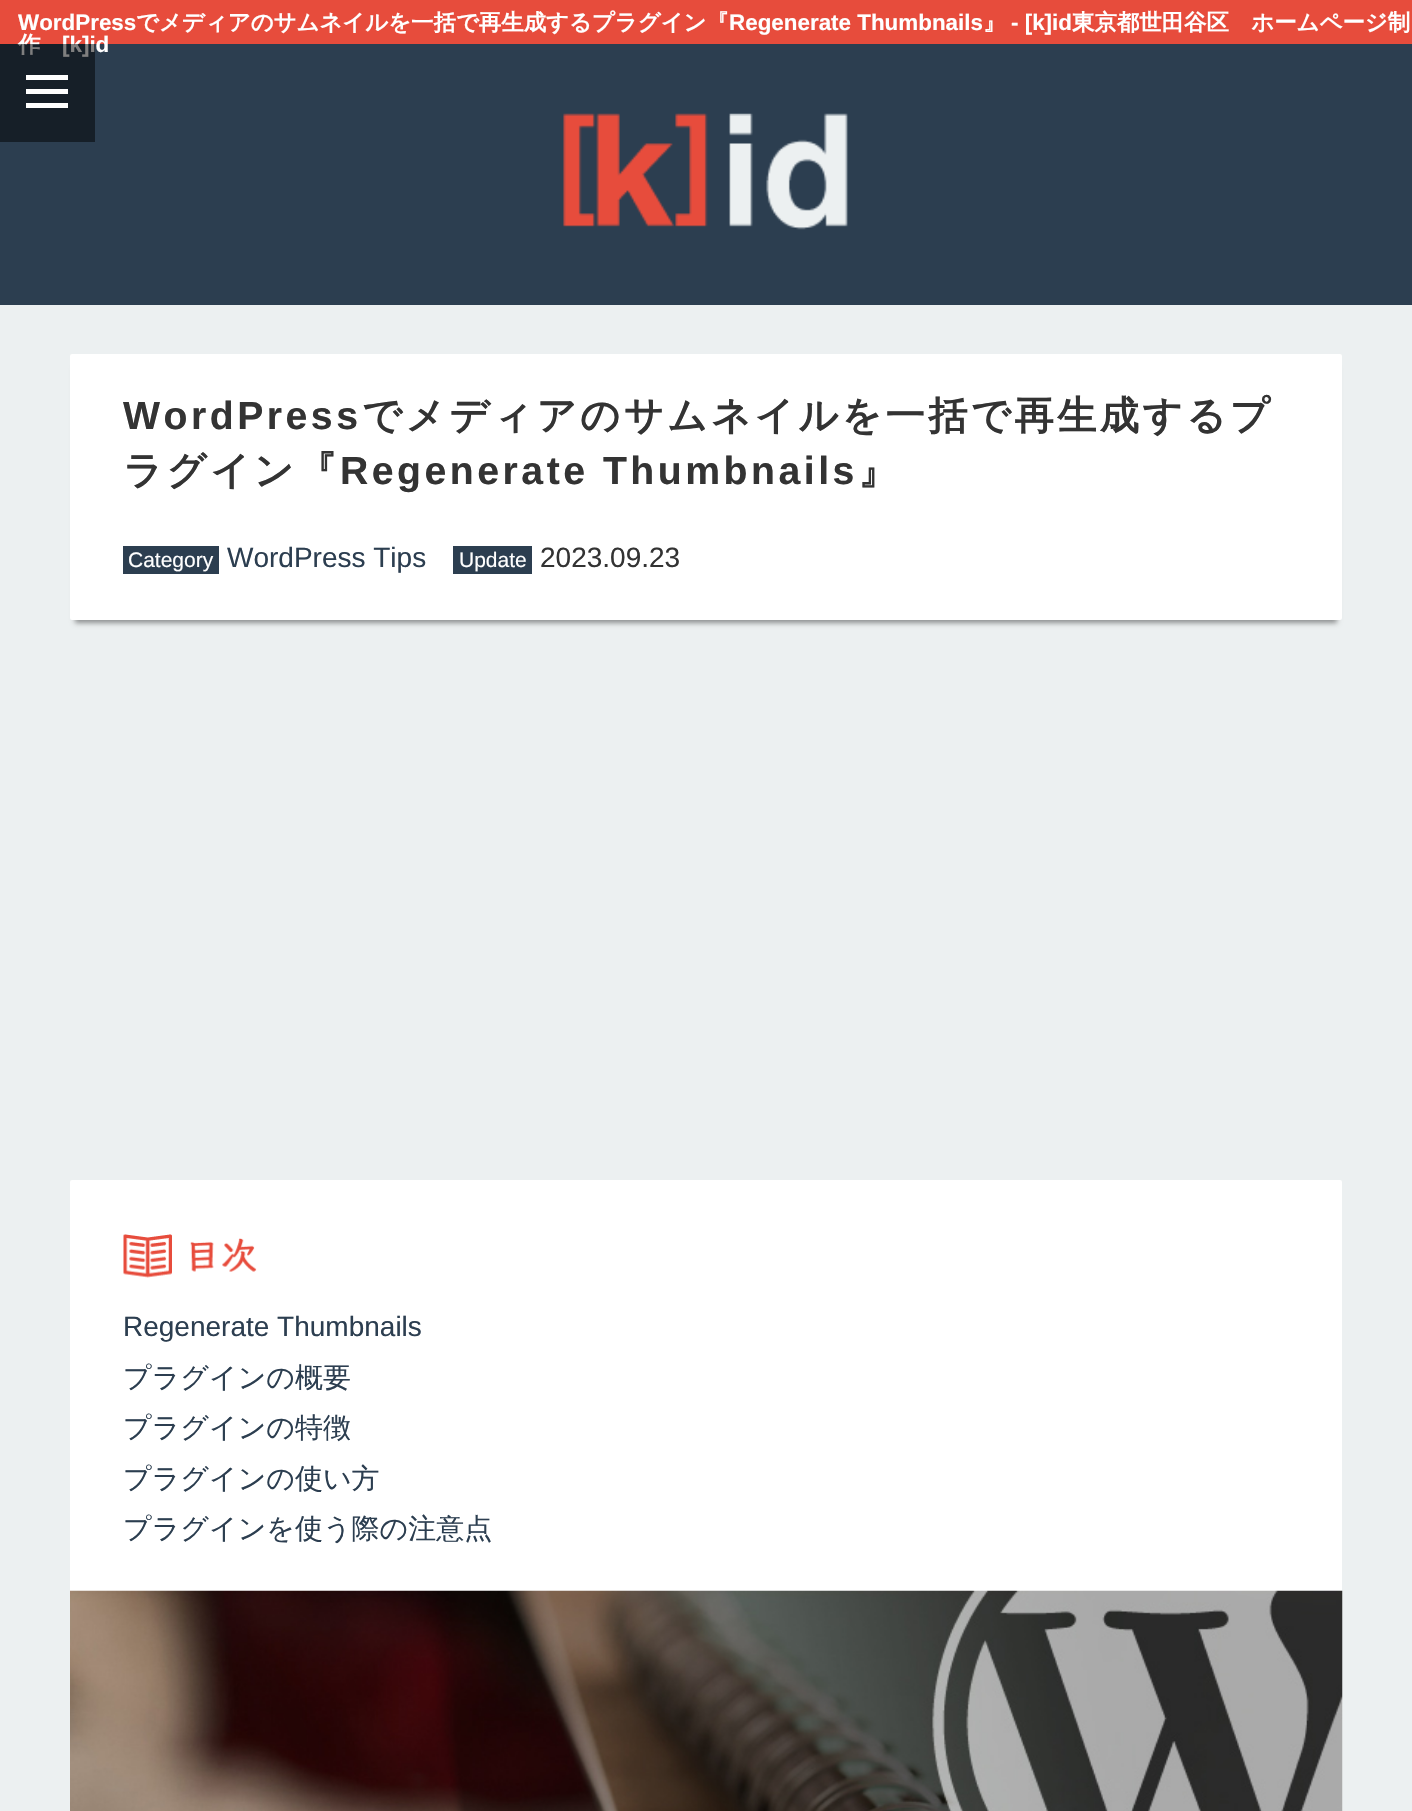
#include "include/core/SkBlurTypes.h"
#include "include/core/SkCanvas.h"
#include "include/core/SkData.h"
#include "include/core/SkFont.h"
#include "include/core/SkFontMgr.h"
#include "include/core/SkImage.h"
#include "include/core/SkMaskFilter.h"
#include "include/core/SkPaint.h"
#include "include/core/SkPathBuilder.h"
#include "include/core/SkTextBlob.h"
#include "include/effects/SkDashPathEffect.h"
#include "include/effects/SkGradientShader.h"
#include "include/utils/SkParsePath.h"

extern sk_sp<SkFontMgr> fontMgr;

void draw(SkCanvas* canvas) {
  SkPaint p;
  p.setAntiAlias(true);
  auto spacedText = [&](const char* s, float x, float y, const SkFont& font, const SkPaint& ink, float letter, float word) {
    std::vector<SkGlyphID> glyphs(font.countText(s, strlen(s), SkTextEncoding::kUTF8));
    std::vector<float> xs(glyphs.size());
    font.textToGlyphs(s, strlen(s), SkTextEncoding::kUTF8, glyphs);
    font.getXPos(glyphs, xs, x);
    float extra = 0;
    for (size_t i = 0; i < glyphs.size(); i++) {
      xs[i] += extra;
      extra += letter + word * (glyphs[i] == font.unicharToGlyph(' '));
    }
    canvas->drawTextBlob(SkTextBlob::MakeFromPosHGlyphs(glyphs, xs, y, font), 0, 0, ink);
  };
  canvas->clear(SkColorSetRGB(236, 240, 241));
  p.setColor(SkColorSetRGB(44, 62, 80));
  canvas->drawRect(SkRect::MakeLTRB(0, 44, 1412, 305), p);
  p.setColor(SkColorSetRGB(231, 76, 60));
  canvas->drawRect(SkRect::MakeLTRB(0, 0, 1412, 44), p);
  canvas->drawImageRect(SkImages::DeferredFromEncodedData(SkData::MakeFromFileName("images/1.png")), SkRect::MakeLTRB(563, 113, 848, 230), SkSamplingOptions());
  p.setColor(SkColorSetARGB(102, 0, 0, 0));
  p.setMaskFilter(SkMaskFilter::MakeBlur(kNormal_SkBlurStyle, 2.5f));
  canvas->drawRect(SkRect::MakeLTRB(75, 368, 1337, 623), p);
  p.setMaskFilter(nullptr);
  p.setColor(SK_ColorWHITE);
  canvas->drawRoundRect(SkRect::MakeLTRB(70, 354, 1342, 620), 2, 2, p);
  p.setColor(SkColorSetRGB(44, 62, 80));
  canvas->drawRect(SkRect::MakeLTRB(123, 546, 219, 574), p);
  canvas->drawRect(SkRect::MakeLTRB(453, 546, 532, 574), p);
  p.setColor(SK_ColorWHITE);
  canvas->drawRoundRect(SkRect::MakeLTRB(70, 1180, 1342, 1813), 2, 2, p);
  canvas->drawImageRect(SkImages::DeferredFromEncodedData(SkData::MakeFromFileName("images/2.png")), SkRect::MakeLTRB(123, 1234, 257, 1278), SkSamplingOptions());
  canvas->drawImageRect(SkImages::DeferredFromEncodedData(SkData::MakeFromFileName("images/3.png")), SkRect::MakeLTRB(70, 1590, 1343, 1811), SkSamplingOptions());
  SkFont font1(fontMgr->matchFamilyStyle("Liberation Sans", SkFontStyle::Bold()), 22.4f);
  font1.setSubpixel(true);
  canvas->drawString("WordPress", 18, 30, font1, p);
  SkFont font2(fontMgr->matchFamilyStyle("WenQuanYi Zen Hei", SkFontStyle::Bold()), 22.4f);
  font2.setSubpixel(true);
  canvas->drawString("でメディアのサムネイルを一括で再生成するプラグイン『", 136, 30, font2, p);
  canvas->drawString("Regenerate Thumbnails", 729, 30, font1, p);
  canvas->drawString("』", 983, 30, font2, p);
  canvas->drawString("- [k]id", 1011, 30, font1, p);
  canvas->drawString("東京都世田谷区　ホームページ制", 1072, 30, font2, p);
  canvas->drawString("作", 18, 52, font2, p);
  canvas->drawString("[k]id", 62, 52, font1, p);
  p.setColor(SkColorSetARGB(128, 0, 0, 0));
  canvas->drawRect(SkRect::MakeLTRB(0, 44, 95, 142), p);
  p.setColor(SK_ColorWHITE);
  canvas->drawRect(SkRect::MakeLTRB(26, 75, 68, 80), p);
  canvas->drawRect(SkRect::MakeLTRB(26, 89, 68, 94), p);
  canvas->drawRect(SkRect::MakeLTRB(26, 103, 68, 108), p);
  SkFont font3(fontMgr->matchFamilyStyle("Liberation Sans", SkFontStyle::Bold()), 39.2f);
  font3.setSubpixel(true);
  p.setColor(SkColorSetRGB(51, 51, 51));
  spacedText("WordPress", 123, 429, font3, p, 3.5f, 0);
  SkFont font4(fontMgr->matchFamilyStyle("WenQuanYi Zen Hei", SkFontStyle::Bold()), 39.2f);
  font4.setSubpixel(true);
  spacedText("でメディアのサムネイルを一括で再生成するプ", 362, 429, font4, p, 3.5f, 0);
  spacedText("ラグイン『", 123, 484, font4, p, 3.5f, 0);
  spacedText("Regenerate Thumbnails", 340, 484, font3, p, 3.5f, 0);
  spacedText("』", 858, 484, font4, p, 3.5f, 0);
  SkFont font5(fontMgr->matchFamilyStyle("Liberation Sans", SkFontStyle::Normal()), 21);
  font5.setSubpixel(true);
  p.setColor(SK_ColorWHITE);
  canvas->drawString("Category", 128, 567, font5, p);
  SkFont font6(fontMgr->matchFamilyStyle("Liberation Sans", SkFontStyle::Normal()), 28);
  font6.setSubpixel(true);
  p.setColor(SkColorSetRGB(44, 62, 80));
  canvas->drawString("WordPress Tips", 227, 567, font6, p);
  p.setColor(SK_ColorWHITE);
  canvas->drawString("Update", 459, 567, font5, p);
  p.setColor(SkColorSetRGB(51, 51, 51));
  canvas->drawString("2023.09.23", 540, 567, font6, p);
  p.setColor(SkColorSetRGB(44, 62, 80));
  canvas->drawString("Regenerate Thumbnails", 123, 1336, font6, p);
  SkFont font7(fontMgr->matchFamilyStyle("WenQuanYi Zen Hei", SkFontStyle(500, SkFontStyle::kNormal_Width, SkFontStyle::kUpright_Slant)), 28);
  font7.setSubpixel(true);
  canvas->drawString("プラグインの概要", 123, 1387, font7, p);
  canvas->drawString("プラグインの特徴", 123, 1437, font7, p);
  canvas->drawString("プラグインの使い方", 123, 1488, font7, p);
  canvas->drawString("プラグインを使う際の注意点", 123, 1538, font7, p);
}
